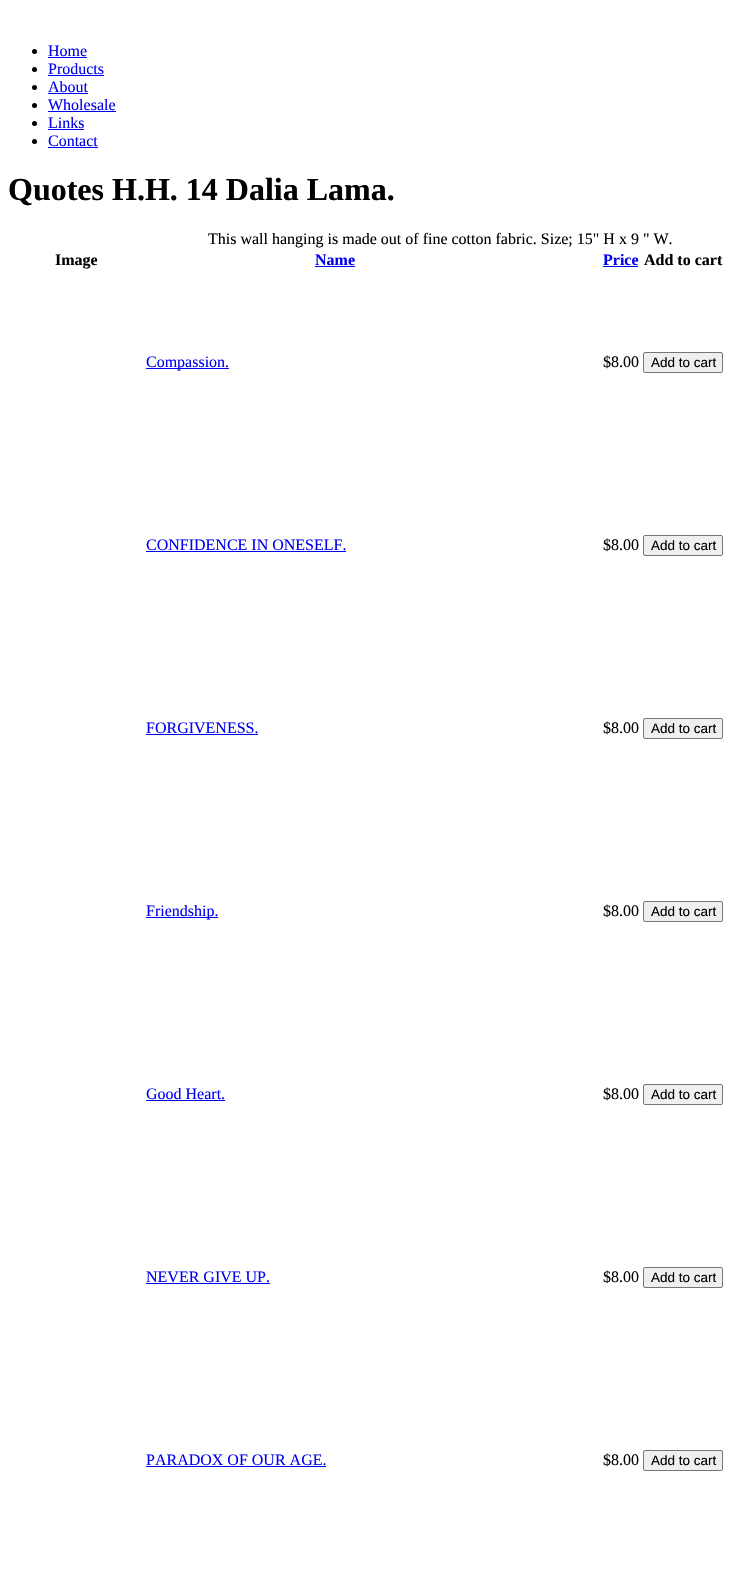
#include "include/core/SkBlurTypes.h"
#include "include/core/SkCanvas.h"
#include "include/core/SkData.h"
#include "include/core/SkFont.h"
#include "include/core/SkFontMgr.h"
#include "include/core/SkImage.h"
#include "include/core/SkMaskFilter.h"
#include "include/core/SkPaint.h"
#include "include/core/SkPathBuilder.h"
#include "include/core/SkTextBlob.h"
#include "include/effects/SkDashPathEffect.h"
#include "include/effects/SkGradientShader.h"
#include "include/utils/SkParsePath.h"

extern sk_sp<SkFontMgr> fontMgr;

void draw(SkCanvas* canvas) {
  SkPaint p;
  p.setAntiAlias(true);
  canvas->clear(SK_ColorWHITE);
  p.setColor(SK_ColorBLACK);
  canvas->drawCircle(34.5f, 51.5f, 2.5f, p);
  p.setColor(SkColorSetRGB(0, 0, 238));
  canvas->drawRect(SkRect::MakeLTRB(48, 57, 87, 58), p);
  p.setColor(SK_ColorBLACK);
  canvas->drawCircle(34.5f, 69.5f, 2.5f, p);
  p.setColor(SkColorSetRGB(0, 0, 238));
  canvas->drawRect(SkRect::MakeLTRB(48, 75, 104, 76), p);
  p.setColor(SK_ColorBLACK);
  canvas->drawCircle(34.5f, 87.5f, 2.5f, p);
  p.setColor(SkColorSetRGB(0, 0, 238));
  canvas->drawRect(SkRect::MakeLTRB(48, 93, 88, 94), p);
  p.setColor(SK_ColorBLACK);
  canvas->drawCircle(34.5f, 105.5f, 2.5f, p);
  p.setColor(SkColorSetRGB(0, 0, 238));
  canvas->drawRect(SkRect::MakeLTRB(48, 111, 116, 112), p);
  p.setColor(SK_ColorBLACK);
  canvas->drawCircle(34.5f, 123.5f, 2.5f, p);
  p.setColor(SkColorSetRGB(0, 0, 238));
  canvas->drawRect(SkRect::MakeLTRB(48, 129, 84, 130), p);
  p.setColor(SK_ColorBLACK);
  canvas->drawCircle(34.5f, 141.5f, 2.5f, p);
  p.setColor(SkColorSetRGB(0, 0, 238));
  canvas->drawRect(SkRect::MakeLTRB(48, 147, 98, 148), p);
  canvas->drawRect(SkRect::MakeLTRB(315, 266, 355, 267), p);
  canvas->drawRect(SkRect::MakeLTRB(603, 266, 638, 267), p);
  canvas->drawRect(SkRect::MakeLTRB(146, 368, 229, 369), p);
  p.setColor(SkColorSetRGB(239, 239, 239));
  canvas->drawRoundRect(SkRect::MakeLTRB(643.5f, 352.5f, 722.5f, 372.5f), 1.5f, 1.5f, p);
  p.setStyle(SkPaint::kStroke_Style);
  p.setStrokeWidth(1);
  p.setColor(SkColorSetRGB(118, 118, 118));
  canvas->drawRoundRect(SkRect::MakeLTRB(643.5f, 352.5f, 722.5f, 372.5f), 1.5f, 1.5f, p);
  p.setStyle(SkPaint::kFill_Style);
  p.setColor(SkColorSetRGB(0, 0, 238));
  canvas->drawRect(SkRect::MakeLTRB(146, 551, 346, 552), p);
  p.setColor(SkColorSetRGB(239, 239, 239));
  canvas->drawRoundRect(SkRect::MakeLTRB(643.5f, 535.5f, 722.5f, 555.5f), 1.5f, 1.5f, p);
  p.setStyle(SkPaint::kStroke_Style);
  p.setColor(SkColorSetRGB(118, 118, 118));
  canvas->drawRoundRect(SkRect::MakeLTRB(643.5f, 535.5f, 722.5f, 555.5f), 1.5f, 1.5f, p);
  p.setStyle(SkPaint::kFill_Style);
  p.setColor(SkColorSetRGB(0, 0, 238));
  canvas->drawRect(SkRect::MakeLTRB(146, 734, 258, 735), p);
  p.setColor(SkColorSetRGB(239, 239, 239));
  canvas->drawRoundRect(SkRect::MakeLTRB(643.5f, 718.5f, 722.5f, 738.5f), 1.5f, 1.5f, p);
  p.setStyle(SkPaint::kStroke_Style);
  p.setColor(SkColorSetRGB(118, 118, 118));
  canvas->drawRoundRect(SkRect::MakeLTRB(643.5f, 718.5f, 722.5f, 738.5f), 1.5f, 1.5f, p);
  p.setStyle(SkPaint::kFill_Style);
  p.setColor(SkColorSetRGB(0, 0, 238));
  canvas->drawRect(SkRect::MakeLTRB(146, 917, 218, 918), p);
  p.setColor(SkColorSetRGB(239, 239, 239));
  canvas->drawRoundRect(SkRect::MakeLTRB(643.5f, 901.5f, 722.5f, 921.5f), 1.5f, 1.5f, p);
  p.setStyle(SkPaint::kStroke_Style);
  p.setColor(SkColorSetRGB(118, 118, 118));
  canvas->drawRoundRect(SkRect::MakeLTRB(643.5f, 901.5f, 722.5f, 921.5f), 1.5f, 1.5f, p);
  p.setStyle(SkPaint::kFill_Style);
  p.setColor(SkColorSetRGB(0, 0, 238));
  canvas->drawRect(SkRect::MakeLTRB(146, 1100, 225, 1101), p);
  p.setColor(SkColorSetRGB(239, 239, 239));
  canvas->drawRoundRect(SkRect::MakeLTRB(643.5f, 1084.5f, 722.5f, 1104.5f), 1.5f, 1.5f, p);
  p.setStyle(SkPaint::kStroke_Style);
  p.setColor(SkColorSetRGB(118, 118, 118));
  canvas->drawRoundRect(SkRect::MakeLTRB(643.5f, 1084.5f, 722.5f, 1104.5f), 1.5f, 1.5f, p);
  p.setStyle(SkPaint::kFill_Style);
  p.setColor(SkColorSetRGB(0, 0, 238));
  canvas->drawRect(SkRect::MakeLTRB(146, 1283, 270, 1284), p);
  p.setColor(SkColorSetRGB(239, 239, 239));
  canvas->drawRoundRect(SkRect::MakeLTRB(643.5f, 1267.5f, 722.5f, 1287.5f), 1.5f, 1.5f, p);
  p.setStyle(SkPaint::kStroke_Style);
  p.setColor(SkColorSetRGB(118, 118, 118));
  canvas->drawRoundRect(SkRect::MakeLTRB(643.5f, 1267.5f, 722.5f, 1287.5f), 1.5f, 1.5f, p);
  p.setStyle(SkPaint::kFill_Style);
  p.setColor(SkColorSetRGB(0, 0, 238));
  canvas->drawRect(SkRect::MakeLTRB(146, 1466, 326, 1467), p);
  p.setColor(SkColorSetRGB(239, 239, 239));
  canvas->drawRoundRect(SkRect::MakeLTRB(643.5f, 1450.5f, 722.5f, 1470.5f), 1.5f, 1.5f, p);
  p.setStyle(SkPaint::kStroke_Style);
  p.setColor(SkColorSetRGB(118, 118, 118));
  canvas->drawRoundRect(SkRect::MakeLTRB(643.5f, 1450.5f, 722.5f, 1470.5f), 1.5f, 1.5f, p);
  SkFont font1(fontMgr->matchFamilyStyle("Liberation Serif", SkFontStyle::Normal()), 16);
  font1.setSubpixel(true);
  p.setStyle(SkPaint::kFill_Style);
  p.setColor(SkColorSetRGB(0, 0, 238));
  canvas->drawString("Home", 48, 56, font1, p);
  canvas->drawString("Products", 48, 74, font1, p);
  canvas->drawString("About", 48, 92, font1, p);
  canvas->drawString("Wholesale", 48, 110, font1, p);
  canvas->drawString("Links", 48, 128, font1, p);
  canvas->drawString("Contact", 48, 146, font1, p);
  SkFont font2(fontMgr->matchFamilyStyle("Liberation Serif", SkFontStyle::Bold()), 32);
  font2.setSubpixel(true);
  p.setColor(SK_ColorBLACK);
  canvas->drawString("Quotes H.H. 14 Dalia Lama.", 8, 200, font2, p);
  canvas->drawString("This wall hanging is made out of fine cotton fabric. Size; 15\" H x 9 \" W.", 208, 244, font1, p);
  SkFont font3(fontMgr->matchFamilyStyle("Liberation Serif", SkFontStyle::Bold()), 16);
  font3.setSubpixel(true);
  canvas->drawString("Image", 55, 265, font3, p);
  p.setColor(SkColorSetRGB(0, 0, 238));
  canvas->drawString("Name", 315, 265, font3, p);
  canvas->drawString("Price", 603, 265, font3, p);
  p.setColor(SK_ColorBLACK);
  canvas->drawString("Add to cart", 644, 265, font3, p);
  p.setColor(SkColorSetRGB(0, 0, 238));
  canvas->drawString("Compassion.", 146, 367, font1, p);
  p.setColor(SK_ColorBLACK);
  canvas->drawString("$8.00", 603, 367, font1, p);
  SkFont font4(fontMgr->matchFamilyStyle("Liberation Sans", SkFontStyle::Normal()), 13.5f);
  font4.setSubpixel(true);
  canvas->drawString("Add to cart", 651, 367, font4, p);
  p.setColor(SkColorSetRGB(0, 0, 238));
  canvas->drawString("CONFIDENCE IN ONESELF.", 146, 550, font1, p);
  p.setColor(SK_ColorBLACK);
  canvas->drawString("$8.00", 603, 550, font1, p);
  canvas->drawString("Add to cart", 651, 550, font4, p);
  p.setColor(SkColorSetRGB(0, 0, 238));
  canvas->drawString("FORGIVENESS.", 146, 733, font1, p);
  p.setColor(SK_ColorBLACK);
  canvas->drawString("$8.00", 603, 733, font1, p);
  canvas->drawString("Add to cart", 651, 733, font4, p);
  p.setColor(SkColorSetRGB(0, 0, 238));
  canvas->drawString("Friendship.", 146, 916, font1, p);
  p.setColor(SK_ColorBLACK);
  canvas->drawString("$8.00", 603, 916, font1, p);
  canvas->drawString("Add to cart", 651, 916, font4, p);
  p.setColor(SkColorSetRGB(0, 0, 238));
  canvas->drawString("Good Heart.", 146, 1099, font1, p);
  p.setColor(SK_ColorBLACK);
  canvas->drawString("$8.00", 603, 1099, font1, p);
  canvas->drawString("Add to cart", 651, 1099, font4, p);
  p.setColor(SkColorSetRGB(0, 0, 238));
  canvas->drawString("NEVER GIVE UP.", 146, 1282, font1, p);
  p.setColor(SK_ColorBLACK);
  canvas->drawString("$8.00", 603, 1282, font1, p);
  canvas->drawString("Add to cart", 651, 1282, font4, p);
  p.setColor(SkColorSetRGB(0, 0, 238));
  canvas->drawString("PARADOX OF OUR AGE.", 146, 1465, font1, p);
  p.setColor(SK_ColorBLACK);
  canvas->drawString("$8.00", 603, 1465, font1, p);
  canvas->drawString("Add to cart", 651, 1465, font4, p);
}
